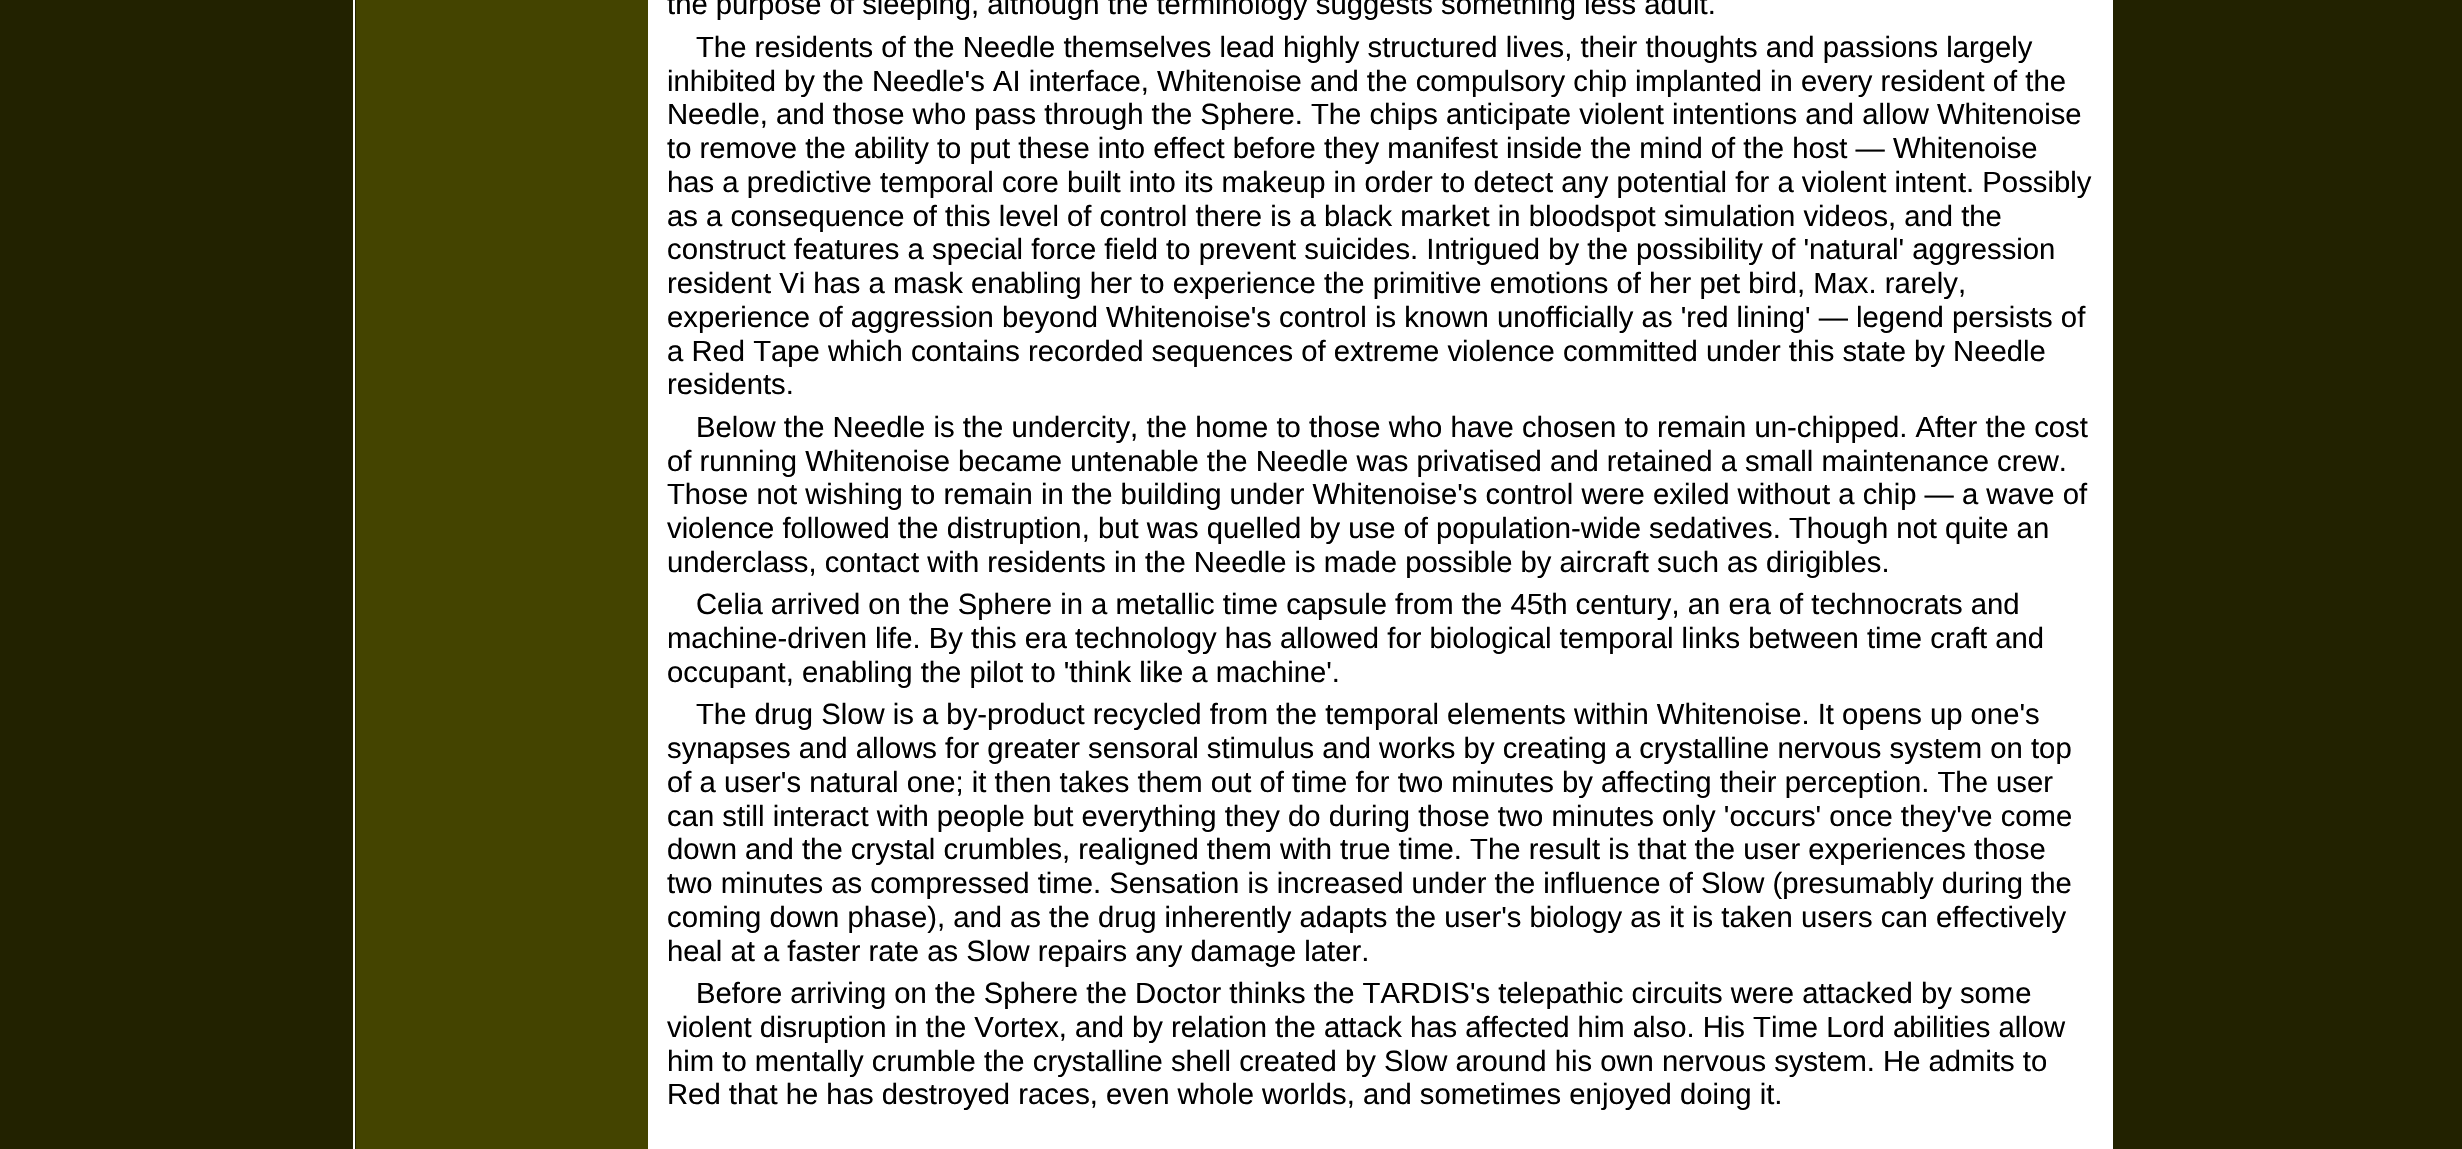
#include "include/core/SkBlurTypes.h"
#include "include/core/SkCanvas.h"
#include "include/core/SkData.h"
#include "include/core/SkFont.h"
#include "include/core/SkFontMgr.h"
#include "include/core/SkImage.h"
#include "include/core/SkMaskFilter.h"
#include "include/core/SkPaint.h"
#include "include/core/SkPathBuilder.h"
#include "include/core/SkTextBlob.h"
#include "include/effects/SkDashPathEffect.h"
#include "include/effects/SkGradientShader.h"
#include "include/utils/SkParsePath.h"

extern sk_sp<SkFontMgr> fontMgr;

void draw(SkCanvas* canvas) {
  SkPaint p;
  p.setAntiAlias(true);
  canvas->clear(SkColorSetRGB(34, 34, 0));
  p.setColor(SK_ColorWHITE);
  canvas->drawRect(SkRect::MakeLTRB(648, 0, 2113, 1149), p);
  canvas->drawRect(SkRect::MakeLTRB(353, 0, 355, 1149), p);
  p.setColor(SkColorSetRGB(68, 68, 0));
  canvas->drawRect(SkRect::MakeLTRB(356, 0, 648, 1149), p);
  SkFont font1(fontMgr->matchFamilyStyle("Liberation Sans", SkFontStyle::Normal()), 29.25f);
  font1.setSubpixel(true);
  p.setColor(SK_ColorBLACK);
  canvas->drawString("the purpose of sleeping, although the terminology suggests something less adult.", 667, 14, font1, p);
  canvas->drawString("The residents of the Needle themselves lead highly structured lives, their thoughts and passions largely", 696, 57, font1, p);
  canvas->drawString("inhibited by the Needle's AI interface, Whitenoise and the compulsory chip implanted in every resident of the", 667, 91, font1, p);
  canvas->drawString("Needle, and those who pass through the Sphere. The chips anticipate violent intentions and allow Whitenoise", 667, 124, font1, p);
  canvas->drawString("to remove the ability to put these into effect before they manifest inside the mind of the host — Whitenoise", 667, 158, font1, p);
  canvas->drawString("has a predictive temporal core built into its makeup in order to detect any potential for a violent intent. Possibly", 667, 192, font1, p);
  canvas->drawString("as a consequence of this level of control there is a black market in bloodspot simulation videos, and the", 667, 226, font1, p);
  canvas->drawString("construct features a special force field to prevent suicides. Intrigued by the possibility of 'natural' aggression", 667, 259, font1, p);
  canvas->drawString("resident Vi has a mask enabling her to experience the primitive emotions of her pet bird, Max. rarely,", 667, 293, font1, p);
  canvas->drawString("experience of aggression beyond Whitenoise's control is known unofficially as 'red lining' — legend persists of", 667, 327, font1, p);
  canvas->drawString("a Red Tape which contains recorded sequences of extreme violence committed under this state by Needle", 667, 361, font1, p);
  canvas->drawString("residents.", 667, 394, font1, p);
  canvas->drawString("Below the Needle is the undercity, the home to those who have chosen to remain un-chipped. After the cost", 696, 437, font1, p);
  canvas->drawString("of running Whitenoise became untenable the Needle was privatised and retained a small maintenance crew.", 667, 471, font1, p);
  canvas->drawString("Those not wishing to remain in the building under Whitenoise's control were exiled without a chip — a wave of", 667, 504, font1, p);
  canvas->drawString("violence followed the distruption, but was quelled by use of population-wide sedatives. Though not quite an", 667, 538, font1, p);
  canvas->drawString("underclass, contact with residents in the Needle is made possible by aircraft such as dirigibles.", 667, 572, font1, p);
  canvas->drawString("Celia arrived on the Sphere in a metallic time capsule from the 45th century, an era of technocrats and", 696, 614, font1, p);
  canvas->drawString("machine-driven life. By this era technology has allowed for biological temporal links between time craft and", 667, 648, font1, p);
  canvas->drawString("occupant, enabling the pilot to 'think like a machine'.", 667, 682, font1, p);
  canvas->drawString("The drug Slow is a by-product recycled from the temporal elements within Whitenoise. It opens up one's", 696, 724, font1, p);
  canvas->drawString("synapses and allows for greater sensoral stimulus and works by creating a crystalline nervous system on top", 667, 758, font1, p);
  canvas->drawString("of a user's natural one; it then takes them out of time for two minutes by affecting their perception. The user", 667, 792, font1, p);
  canvas->drawString("can still interact with people but everything they do during those two minutes only 'occurs' once they've come", 667, 826, font1, p);
  canvas->drawString("down and the crystal crumbles, realigned them with true time. The result is that the user experiences those", 667, 859, font1, p);
  canvas->drawString("two minutes as compressed time. Sensation is increased under the influence of Slow (presumably during the", 667, 893, font1, p);
  canvas->drawString("coming down phase), and as the drug inherently adapts the user's biology as it is taken users can effectively", 667, 927, font1, p);
  canvas->drawString("heal at a faster rate as Slow repairs any damage later.", 667, 961, font1, p);
  canvas->drawString("Before arriving on the Sphere the Doctor thinks the TARDIS's telepathic circuits were attacked by some", 696, 1003, font1, p);
  canvas->drawString("violent disruption in the Vortex, and by relation the attack has affected him also. His Time Lord abilities allow", 667, 1037, font1, p);
  canvas->drawString("him to mentally crumble the crystalline shell created by Slow around his own nervous system. He admits to", 667, 1071, font1, p);
  canvas->drawString("Red that he has destroyed races, even whole worlds, and sometimes enjoyed doing it.", 667, 1104, font1, p);
}
